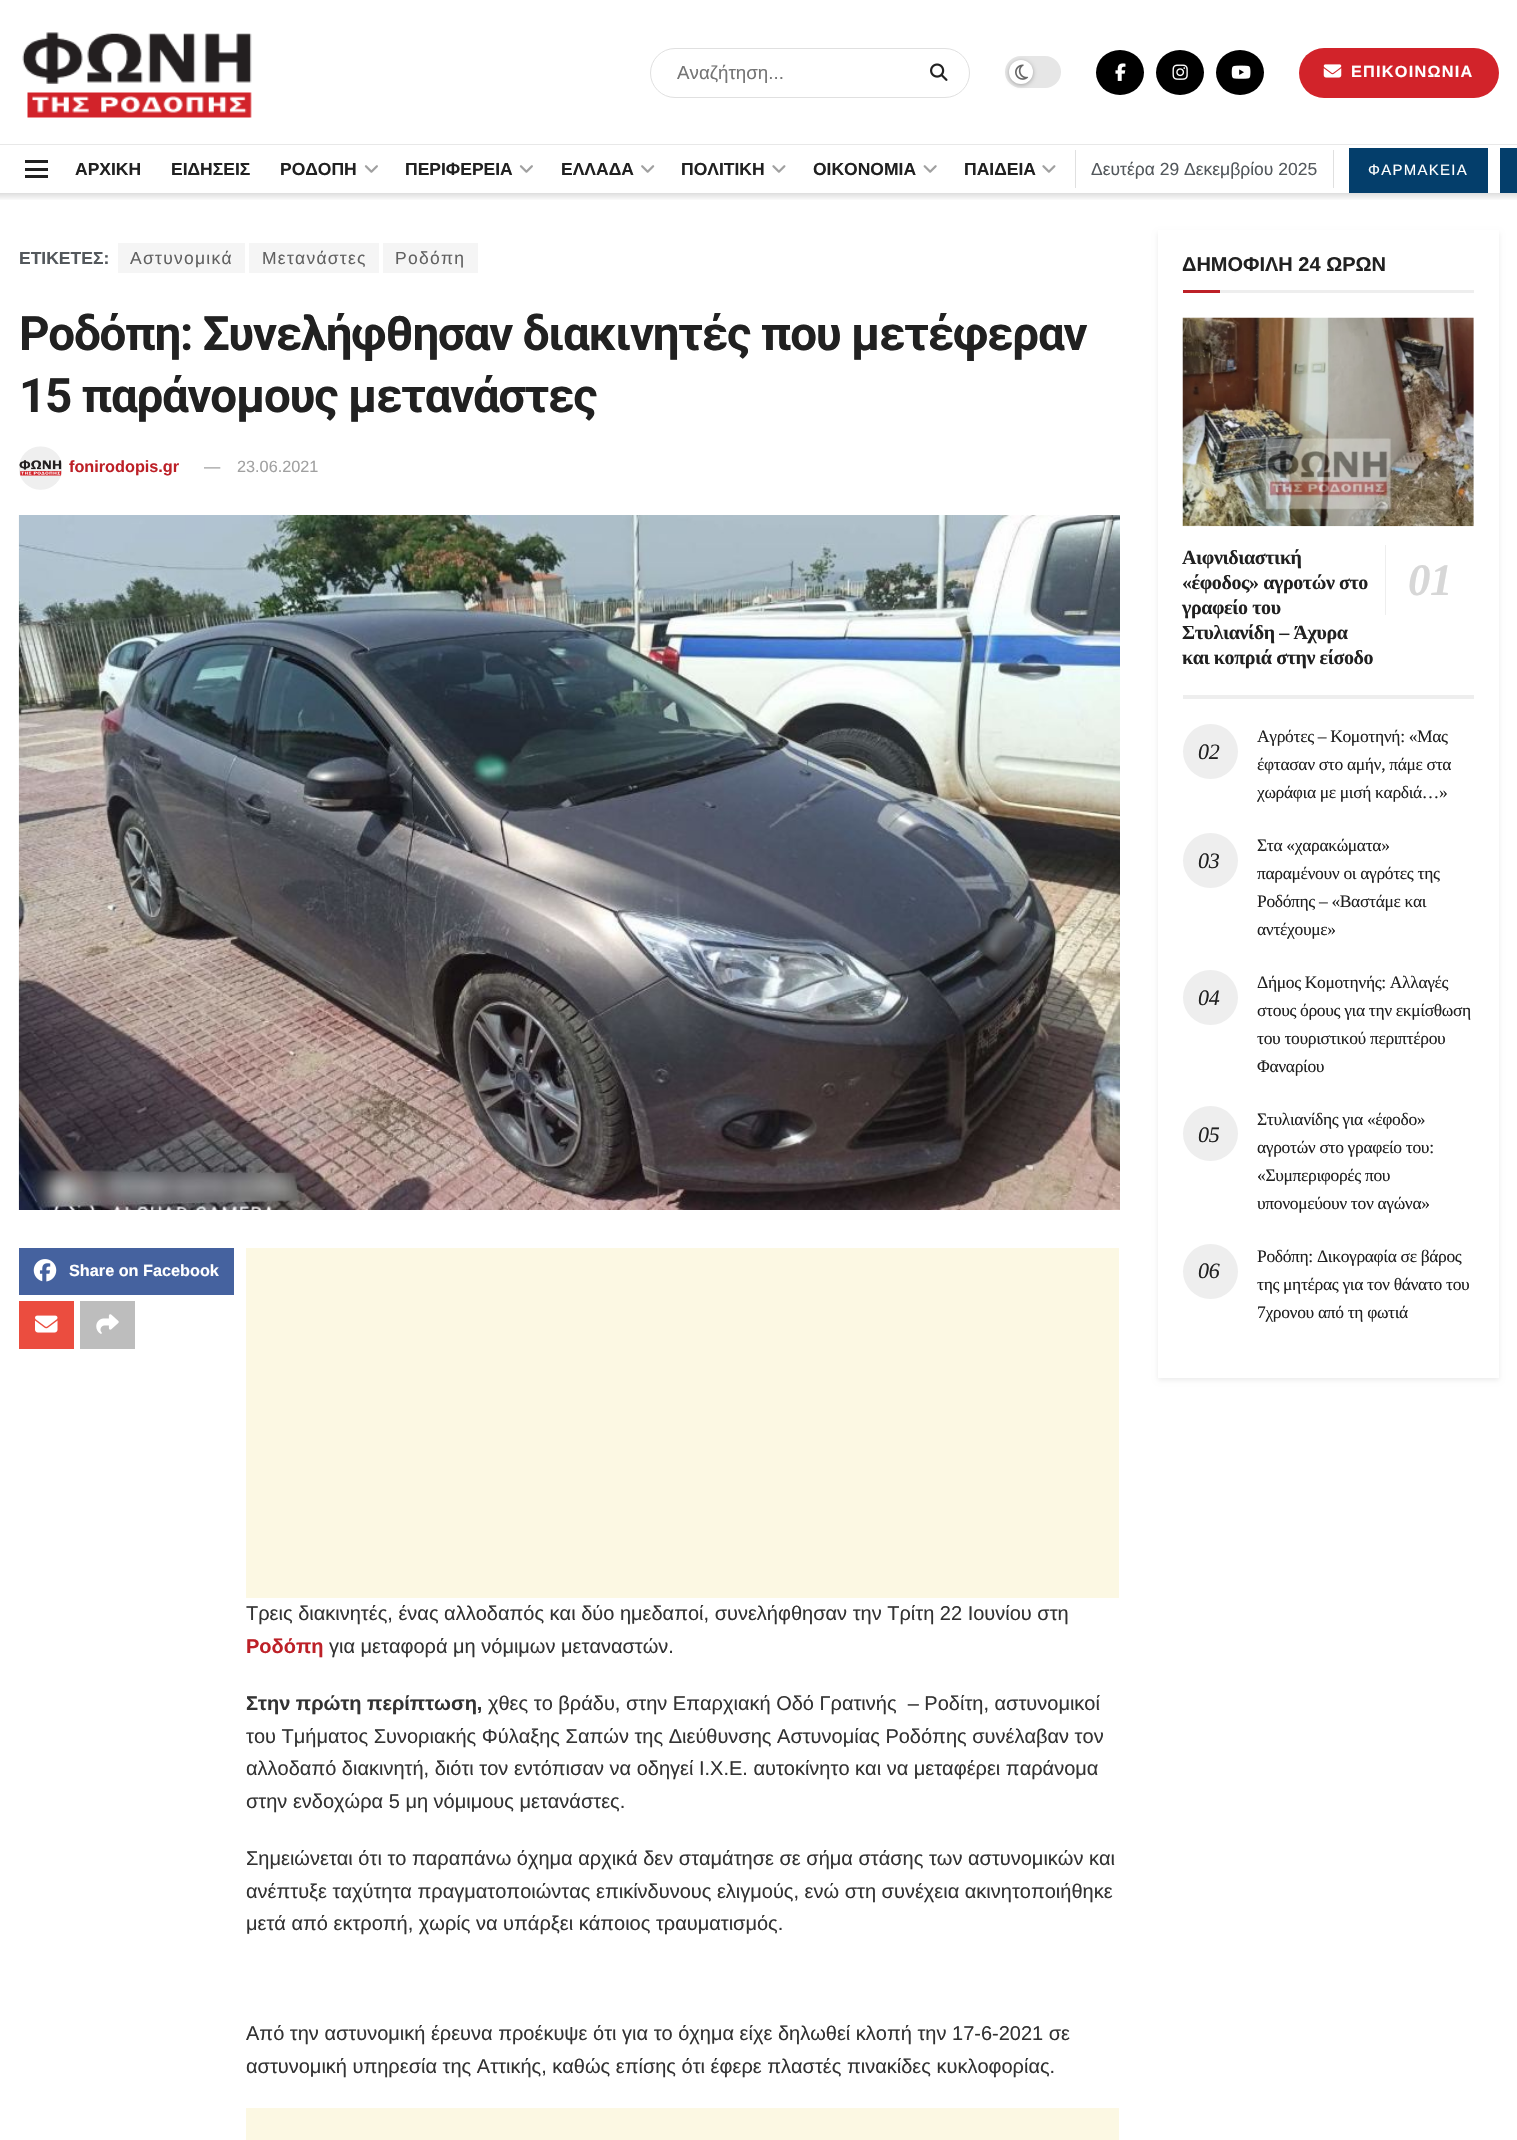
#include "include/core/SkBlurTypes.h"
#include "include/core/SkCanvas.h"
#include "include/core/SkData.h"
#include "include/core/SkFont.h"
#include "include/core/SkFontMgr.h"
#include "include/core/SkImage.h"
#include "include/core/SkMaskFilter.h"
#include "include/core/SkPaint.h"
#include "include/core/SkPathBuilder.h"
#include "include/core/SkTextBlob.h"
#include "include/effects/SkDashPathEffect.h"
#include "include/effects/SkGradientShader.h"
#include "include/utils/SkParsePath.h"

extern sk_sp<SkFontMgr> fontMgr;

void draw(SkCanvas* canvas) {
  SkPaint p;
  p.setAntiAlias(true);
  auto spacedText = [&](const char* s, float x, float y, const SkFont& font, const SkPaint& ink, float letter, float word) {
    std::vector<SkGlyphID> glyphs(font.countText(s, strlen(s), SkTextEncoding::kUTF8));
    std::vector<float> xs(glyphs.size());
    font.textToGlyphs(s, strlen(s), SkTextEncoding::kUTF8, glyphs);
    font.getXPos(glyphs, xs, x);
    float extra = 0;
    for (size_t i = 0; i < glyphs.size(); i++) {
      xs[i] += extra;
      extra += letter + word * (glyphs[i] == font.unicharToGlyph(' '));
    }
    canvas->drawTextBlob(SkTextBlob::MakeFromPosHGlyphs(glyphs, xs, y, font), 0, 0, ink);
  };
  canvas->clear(SK_ColorWHITE);
  p.setColor(SkColorSetRGB(232, 232, 232));
  canvas->drawRect(SkRect::MakeLTRB(0, 144, 1517, 145), p);
  canvas->drawImageRect(SkImages::DeferredFromEncodedData(SkData::MakeFromFileName("images/1.png")), SkRect::MakeLTRB(22, 32, 252, 118), SkSamplingOptions());
  p.setStyle(SkPaint::kStroke_Style);
  p.setStrokeWidth(1);
  p.setColor(SkColorSetRGB(224, 224, 224));
  canvas->drawRoundRect(SkRect::MakeLTRB(650.5f, 48.5f, 969.5f, 97.5f), 24.5f, 24.5f, p);
  canvas->drawImageRect(SkImages::DeferredFromEncodedData(SkData::MakeFromFileName("images/2.png")), SkRect::MakeLTRB(930, 63, 948, 81), SkSamplingOptions());
  p.setStyle(SkPaint::kFill_Style);
  p.setColor(SkColorSetRGB(230, 230, 230));
  canvas->drawRoundRect(SkRect::MakeLTRB(1005, 56, 1061, 88), 16, 16, p);
  p.setColor(SkColorSetARGB(77, 0, 0, 0));
  p.setMaskFilter(SkMaskFilter::MakeBlur(kNormal_SkBlurStyle, 2));
  canvas->drawRoundRect(SkRect::MakeLTRB(1009, 61, 1033, 85), 12, 12, p);
  p.setMaskFilter(nullptr);
  p.setColor(SK_ColorWHITE);
  canvas->drawCircle(1021, 72, 12, p);
  canvas->drawImageRect(SkImages::DeferredFromEncodedData(SkData::MakeFromFileName("images/3.png")), SkRect::MakeLTRB(1015, 64, 1029, 80), SkSamplingOptions());
  p.setColor(SK_ColorBLACK);
  canvas->drawOval(SkRect::MakeLTRB(1096, 50, 1144, 95), p);
  canvas->drawImageRect(SkImages::DeferredFromEncodedData(SkData::MakeFromFileName("images/4.png")), SkRect::MakeLTRB(1115, 63, 1126, 81), SkSamplingOptions());
  canvas->drawOval(SkRect::MakeLTRB(1156, 50, 1204, 95), p);
  canvas->drawImageRect(SkImages::DeferredFromEncodedData(SkData::MakeFromFileName("images/5.png")), SkRect::MakeLTRB(1172, 64, 1188, 80), SkSamplingOptions());
  canvas->drawOval(SkRect::MakeLTRB(1216, 50, 1264, 95), p);
  canvas->drawImageRect(SkImages::DeferredFromEncodedData(SkData::MakeFromFileName("images/6.png")), SkRect::MakeLTRB(1231, 65, 1251, 79), SkSamplingOptions());
  p.setColor(SkColorSetRGB(210, 35, 42));
  canvas->drawRoundRect(SkRect::MakeLTRB(1299, 48, 1499, 98), 25, 25, p);
  canvas->drawImageRect(SkImages::DeferredFromEncodedData(SkData::MakeFromFileName("images/7.png")), SkRect::MakeLTRB(1323, 64, 1342, 78), SkSamplingOptions());
  p.setColor(SkColorSetRGB(33, 33, 33));
  canvas->drawRect(SkRect::MakeLTRB(25, 160, 48, 163), p);
  canvas->drawRect(SkRect::MakeLTRB(25, 168, 48, 171), p);
  canvas->drawRect(SkRect::MakeLTRB(25, 175, 48, 178), p);
  canvas->drawImageRect(SkImages::DeferredFromEncodedData(SkData::MakeFromFileName("images/8.png")), SkRect::MakeLTRB(364, 165, 378, 173), SkSamplingOptions());
  canvas->drawImageRect(SkImages::DeferredFromEncodedData(SkData::MakeFromFileName("images/8.png")), SkRect::MakeLTRB(519, 165, 533, 173), SkSamplingOptions());
  canvas->drawImageRect(SkImages::DeferredFromEncodedData(SkData::MakeFromFileName("images/9.png")), SkRect::MakeLTRB(641, 165, 655, 173), SkSamplingOptions());
  canvas->drawImageRect(SkImages::DeferredFromEncodedData(SkData::MakeFromFileName("images/10.png")), SkRect::MakeLTRB(772, 165, 786, 173), SkSamplingOptions());
  canvas->drawImageRect(SkImages::DeferredFromEncodedData(SkData::MakeFromFileName("images/11.png")), SkRect::MakeLTRB(923, 165, 937, 173), SkSamplingOptions());
  canvas->drawImageRect(SkImages::DeferredFromEncodedData(SkData::MakeFromFileName("images/10.png")), SkRect::MakeLTRB(1042, 165, 1056, 173), SkSamplingOptions());
  p.setColor(SkColorSetRGB(224, 224, 224));
  canvas->drawRect(SkRect::MakeLTRB(1075, 150, 1076, 188), p);
  canvas->drawRect(SkRect::MakeLTRB(1333, 150, 1334, 188), p);
  p.setColor(SkColorSetRGB(4, 62, 107));
  canvas->drawRect(SkRect::MakeLTRB(1349, 148, 1488, 193), p);
  canvas->drawRect(SkRect::MakeLTRB(1500, 148, 1517, 193), p);
  {
    const SkColor colors[] = {SkColorSetRGB(217, 217, 217), SK_ColorWHITE};
    const float stops[] = {0, 1};
    const SkPoint ends[] = {{759, 192}, {759, 201}};
    p.setShader(SkGradientShader::MakeLinear(ends, colors, stops, 2, SkTileMode::kClamp));
    p.setAlpha(255);
  }
  canvas->drawRect(SkRect::MakeLTRB(0, 193, 1517, 200), p);
  p.setShader(nullptr);
  p.setColor(SkColorSetRGB(245, 245, 245));
  canvas->drawRect(SkRect::MakeLTRB(118, 243, 245, 273), p);
  canvas->drawRect(SkRect::MakeLTRB(249, 243, 379, 273), p);
  canvas->drawRect(SkRect::MakeLTRB(383, 243, 478, 273), p);
  canvas->drawImageRect(SkImages::DeferredFromEncodedData(SkData::MakeFromFileName("images/12.png")), SkRect::MakeLTRB(19, 446, 62, 490), SkSamplingOptions());
  canvas->drawImageRect(SkImages::DeferredFromEncodedData(SkData::MakeFromFileName("images/13.png")), SkRect::MakeLTRB(18, 515, 1120, 1210), SkSamplingOptions());
  p.setColor(SkColorSetRGB(69, 98, 159));
  canvas->drawRect(SkRect::MakeLTRB(19, 1248, 234, 1295), p);
  canvas->drawImageRect(SkImages::DeferredFromEncodedData(SkData::MakeFromFileName("images/14.png")), SkRect::MakeLTRB(33, 1259, 57, 1282), SkSamplingOptions());
  p.setColor(SkColorSetRGB(235, 77, 63));
  canvas->drawRect(SkRect::MakeLTRB(19, 1301, 74, 1349), p);
  canvas->drawImageRect(SkImages::DeferredFromEncodedData(SkData::MakeFromFileName("images/15.png")), SkRect::MakeLTRB(35, 1315, 58, 1333), SkSamplingOptions());
  p.setColor(SkColorSetRGB(189, 189, 189));
  canvas->drawRect(SkRect::MakeLTRB(80, 1301, 135, 1349), p);
  canvas->drawImageRect(SkImages::DeferredFromEncodedData(SkData::MakeFromFileName("images/16.png")), SkRect::MakeLTRB(96, 1314, 119, 1334), SkSamplingOptions());
  p.setColor(SkColorSetRGB(252, 248, 227));
  canvas->drawRect(SkRect::MakeLTRB(246, 1248, 1119, 1598), p);
  canvas->drawRect(SkRect::MakeLTRB(246, 2108, 1119, 2140), p);
  p.setColor(SkColorSetARGB(20, 0, 0, 0));
  p.setMaskFilter(SkMaskFilter::MakeBlur(kNormal_SkBlurStyle, 2.5f));
  canvas->drawRect(SkRect::MakeLTRB(1158, 233, 1499, 1380), p);
  p.setMaskFilter(nullptr);
  p.setColor(SK_ColorWHITE);
  canvas->drawRect(SkRect::MakeLTRB(1158, 230, 1499, 1378), p);
  p.setColor(SkColorSetRGB(238, 238, 238));
  canvas->drawRect(SkRect::MakeLTRB(1220, 290, 1474, 293), p);
  p.setColor(SkColorSetRGB(189, 32, 39));
  canvas->drawRect(SkRect::MakeLTRB(1183, 290, 1220, 293), p);
  p.setColor(SkColorSetRGB(238, 238, 238));
  canvas->drawRect(SkRect::MakeLTRB(1183, 695, 1474, 699), p);
  p.setColor(SkColorSetRGB(247, 247, 247));
  canvas->drawRect(SkRect::MakeLTRB(1473, 318, 1474, 526), p);
  canvas->drawImageRect(SkImages::DeferredFromEncodedData(SkData::MakeFromFileName("images/18.png")), SkRect::MakeLTRB(1183, 317, 1229, 318), SkSamplingOptions());
  canvas->drawImageRect(SkImages::DeferredFromEncodedData(SkData::MakeFromFileName("images/17.png")), SkRect::MakeLTRB(1182, 317, 1474, 527), SkSamplingOptions());
  p.setColor(SkColorSetRGB(238, 238, 238));
  canvas->drawRect(SkRect::MakeLTRB(1385, 545, 1386, 615), p);
  canvas->drawCircle(1210.5f, 751.5f, 27.5f, p);
  canvas->drawCircle(1210.5f, 860.5f, 27.5f, p);
  canvas->drawCircle(1210.5f, 997.5f, 27.5f, p);
  canvas->drawCircle(1210.5f, 1133.5f, 27.5f, p);
  canvas->drawCircle(1210.5f, 1271.5f, 27.5f, p);
  SkFont font1(fontMgr->matchFamilyStyle("Liberation Sans", SkFontStyle::Normal()), 18.75f);
  font1.setSubpixel(true);
  p.setColor(SkColorSetRGB(117, 117, 117));
  canvas->drawString("Αναζήτηση...", 677, 79, font1, p);
  SkFont font2(fontMgr->matchFamilyStyle("Liberation Sans", SkFontStyle::Bold()), 16.25f);
  font2.setSubpixel(true);
  p.setColor(SK_ColorWHITE);
  spacedText("ΕΠΙΚΟΙΝΩΝΙΑ", 1351, 77, font2, p, 1.25f, 0);
  SkFont font3(fontMgr->matchFamilyStyle("Liberation Sans", SkFontStyle::Bold()), 17.5f);
  font3.setSubpixel(true);
  p.setColor(SkColorSetRGB(33, 33, 33));
  canvas->drawString("ΑΡΧΙΚΗ", 75, 175, font3, p);
  canvas->drawString("ΕΙΔΗΣΕΙΣ", 171, 175, font3, p);
  canvas->drawString("ΡΟΔΟΠΗ", 280, 175, font3, p);
  canvas->drawString("ΠΕΡΙΦΕΡΕΙΑ", 405, 175, font3, p);
  canvas->drawString("ΕΛΛΑΔΑ", 561, 175, font3, p);
  canvas->drawString("ΠΟΛΙΤΙΚΗ", 681, 175, font3, p);
  canvas->drawString("ΟΙΚΟΝΟΜΙΑ", 813, 175, font3, p);
  canvas->drawString("ΠΑΙΔΕΙΑ", 964, 175, font3, p);
  SkFont font4(fontMgr->matchFamilyStyle("Liberation Sans", SkFontStyle::Normal()), 17.5f);
  font4.setSubpixel(true);
  p.setColor(SkColorSetRGB(83, 88, 92));
  canvas->drawString("Δευτέρα 29 Δεκεμβρίου 2025", 1091, 175, font4, p);
  SkFont font5(fontMgr->matchFamilyStyle("Liberation Sans", SkFontStyle::Normal()), 15);
  font5.setSubpixel(true);
  p.setColor(SK_ColorWHITE);
  spacedText("ΦΑΡΜΑΚΕΙΑ", 1368, 175, font5, p, 1.25f, 0);
  p.setColor(SkColorSetRGB(83, 88, 92));
  canvas->drawString("ΕΤΙΚΕΤΕΣ:", 19, 264, font3, p);
  p.setColor(SkColorSetRGB(97, 97, 97));
  spacedText("Αστυνομικά", 130, 264, font4, p, 1.25f, 0);
  spacedText("Μετανάστες", 262, 264, font4, p, 1.25f, 0);
  spacedText("Ροδόπη", 395, 264, font4, p, 1.25f, 0);
  SkFont font6(fontMgr->matchFamilyStyle("Roboto", SkFontStyle::Bold()), 47.5f);
  font6.setSubpixel(true);
  p.setColor(SkColorSetRGB(33, 33, 33));
  spacedText("Ροδόπη: Συνελήφθησαν διακινητές που μετέφεραν", 19, 350, font6, p, -1.25f, 0);
  spacedText("15 παράνομους μετανάστες", 19, 412, font6, p, -1.25f, 0);
  p.setColor(SkColorSetRGB(189, 32, 39));
  canvas->drawString("fonirodopis.gr", 69, 472, font2, p);
  SkFont font7(fontMgr->matchFamilyStyle("Liberation Sans", SkFontStyle::Normal()), 16.25f);
  font7.setSubpixel(true);
  p.setColor(SkColorSetRGB(160, 160, 160));
  canvas->drawString("—", 204, 472, font7, p);
  canvas->drawString("23.06.2021", 237, 472, font7, p);
  p.setColor(SK_ColorWHITE);
  canvas->drawString("Share on Facebook", 69, 1276, font2, p);
  SkFont font8(fontMgr->matchFamilyStyle("Liberation Sans", SkFontStyle::Normal()), 20);
  font8.setSubpixel(true);
  p.setColor(SkColorSetRGB(51, 51, 51));
  canvas->drawString("Τρεις διακινητές, ένας αλλοδαπός και δύο ημεδαποί, συνελήφθησαν την Τρίτη 22 Ιουνίου στη", 246, 1620, font8, p);
  SkFont font9(fontMgr->matchFamilyStyle("Liberation Sans", SkFontStyle::Bold()), 20);
  font9.setSubpixel(true);
  p.setColor(SkColorSetRGB(189, 32, 39));
  canvas->drawString("Ροδόπη", 246, 1653, font9, p);
  p.setColor(SkColorSetRGB(51, 51, 51));
  canvas->drawString("για μεταφορά μη νόμιμων μεταναστών.", 329, 1653, font8, p);
  canvas->drawString("Στην πρώτη περίπτωση,", 246, 1710, font9, p);
  canvas->drawString("χθες το βράδυ, στην Επαρχιακή Οδό Γρατινής  – Ροδίτη, αστυνομικοί", 488, 1710, font8, p);
  canvas->drawString("του Τμήματος Συνοριακής Φύλαξης Σαπών της Διεύθυνσης Αστυνομίας Ροδόπης συνέλαβαν τον", 246, 1743, font8, p);
  canvas->drawString("αλλοδαπό διακινητή, διότι τον εντόπισαν να οδηγεί Ι.Χ.Ε. αυτοκίνητο και να μεταφέρει παράνομα", 246, 1775, font8, p);
  canvas->drawString("στην ενδοχώρα 5 μη νόμιμους μετανάστες.", 246, 1808, font8, p);
  canvas->drawString("Σημειώνεται ότι το παραπάνω όχημα αρχικά δεν σταμάτησε σε σήμα στάσης των αστυνομικών και", 246, 1865, font8, p);
  canvas->drawString("ανέπτυξε ταχύτητα πραγματοποιώντας επικίνδυνους ελιγμούς, ενώ στη συνέχεια ακινητοποιήθηκε", 246, 1898, font8, p);
  canvas->drawString("μετά από εκτροπή, χωρίς να υπάρξει κάποιος τραυματισμός.", 246, 1930, font8, p);
  canvas->drawString("Από την αστυνομική έρευνα προέκυψε ότι για το όχημα είχε δηλωθεί κλοπή την 17-6-2021 σε", 246, 2040, font8, p);
  canvas->drawString("αστυνομική υπηρεσία της Αττικής, καθώς επίσης ότι έφερε πλαστές πινακίδες κυκλοφορίας.", 246, 2073, font8, p);
  p.setColor(SkColorSetRGB(33, 33, 33));
  canvas->drawString("ΔΗΜΟΦΙΛΗ 24 ΩΡΩΝ", 1182, 271, font9, p);
  SkFont font10(fontMgr->matchFamilyStyle("Liberation Serif", SkFontStyle::Bold()), 20);
  font10.setSubpixel(true);
  spacedText("Αιφνιδιαστική", 1182, 564, font10, p, -0.4f, 0);
  spacedText("«έφοδος» αγροτών στο", 1182, 589, font10, p, -0.4f, 0);
  SkFont font11(fontMgr->matchFamilyStyle("Liberation Serif", SkFontStyle::BoldItalic()), 45);
  font11.setSubpixel(true);
  p.setColor(SkColorSetRGB(215, 215, 215));
  spacedText("01", 1408, 595, font11, p, -0.4f, 0);
  p.setColor(SkColorSetRGB(33, 33, 33));
  spacedText("γραφείο του", 1182, 614, font10, p, -0.4f, 0);
  spacedText("Στυλιανίδη – Άχυρα", 1182, 639, font10, p, -0.4f, 0);
  spacedText("και κοπριά στην είσοδο", 1182, 664, font10, p, -0.4f, 0);
  SkFont font12(fontMgr->matchFamilyStyle("Liberation Serif", SkFontStyle::Normal()), 17.5f);
  font12.setSubpixel(true);
  spacedText("Αγρότες – Κομοτηνή: «Μας", 1257, 742, font12, p, -0.35f, 0);
  SkFont font13(fontMgr->matchFamilyStyle("Liberation Serif", SkFontStyle::Italic()), 22);
  font13.setSubpixel(true);
  spacedText("02", 1198, 759, font13, p, -0.35f, 0);
  spacedText("έφτασαν στο αμήν, πάμε στα", 1257, 770, font12, p, -0.35f, 0);
  spacedText("χωράφια με μισή καρδιά…»", 1257, 798, font12, p, -0.35f, 0);
  spacedText("Στα «χαρακώματα»", 1257, 851, font12, p, -0.35f, 0);
  spacedText("03", 1198, 868, font13, p, -0.35f, 0);
  spacedText("παραμένουν οι αγρότες της", 1257, 879, font12, p, -0.35f, 0);
  spacedText("Ροδόπης – «Βαστάμε και", 1257, 907, font12, p, -0.35f, 0);
  spacedText("αντέχουμε»", 1257, 935, font12, p, -0.35f, 0);
  spacedText("Δήμος Κομοτηνής: Αλλαγές", 1257, 988, font12, p, -0.35f, 0);
  spacedText("04", 1198, 1005, font13, p, -0.35f, 0);
  spacedText("στους όρους για την εκμίσθωση", 1257, 1016, font12, p, -0.35f, 0);
  spacedText("του τουριστικού περιπτέρου", 1257, 1044, font12, p, -0.35f, 0);
  spacedText("Φαναρίου", 1257, 1072, font12, p, -0.35f, 0);
  spacedText("Στυλιανίδης για «έφοδο»", 1257, 1125, font12, p, -0.35f, 0);
  spacedText("05", 1198, 1142, font13, p, -0.35f, 0);
  spacedText("αγροτών στο γραφείο του:", 1257, 1153, font12, p, -0.35f, 0);
  spacedText("«Συμπεριφορές που", 1257, 1181, font12, p, -0.35f, 0);
  spacedText("υπονομεύουν τον αγώνα»", 1257, 1209, font12, p, -0.35f, 0);
  spacedText("Ροδόπη: Δικογραφία σε βάρος", 1257, 1262, font12, p, -0.35f, 0);
  spacedText("06", 1198, 1278, font13, p, -0.35f, 0);
  spacedText("της μητέρας για τον θάνατο του", 1257, 1290, font12, p, -0.35f, 0);
  spacedText("7χρονου από τη φωτιά", 1257, 1318, font12, p, -0.35f, 0);
}
